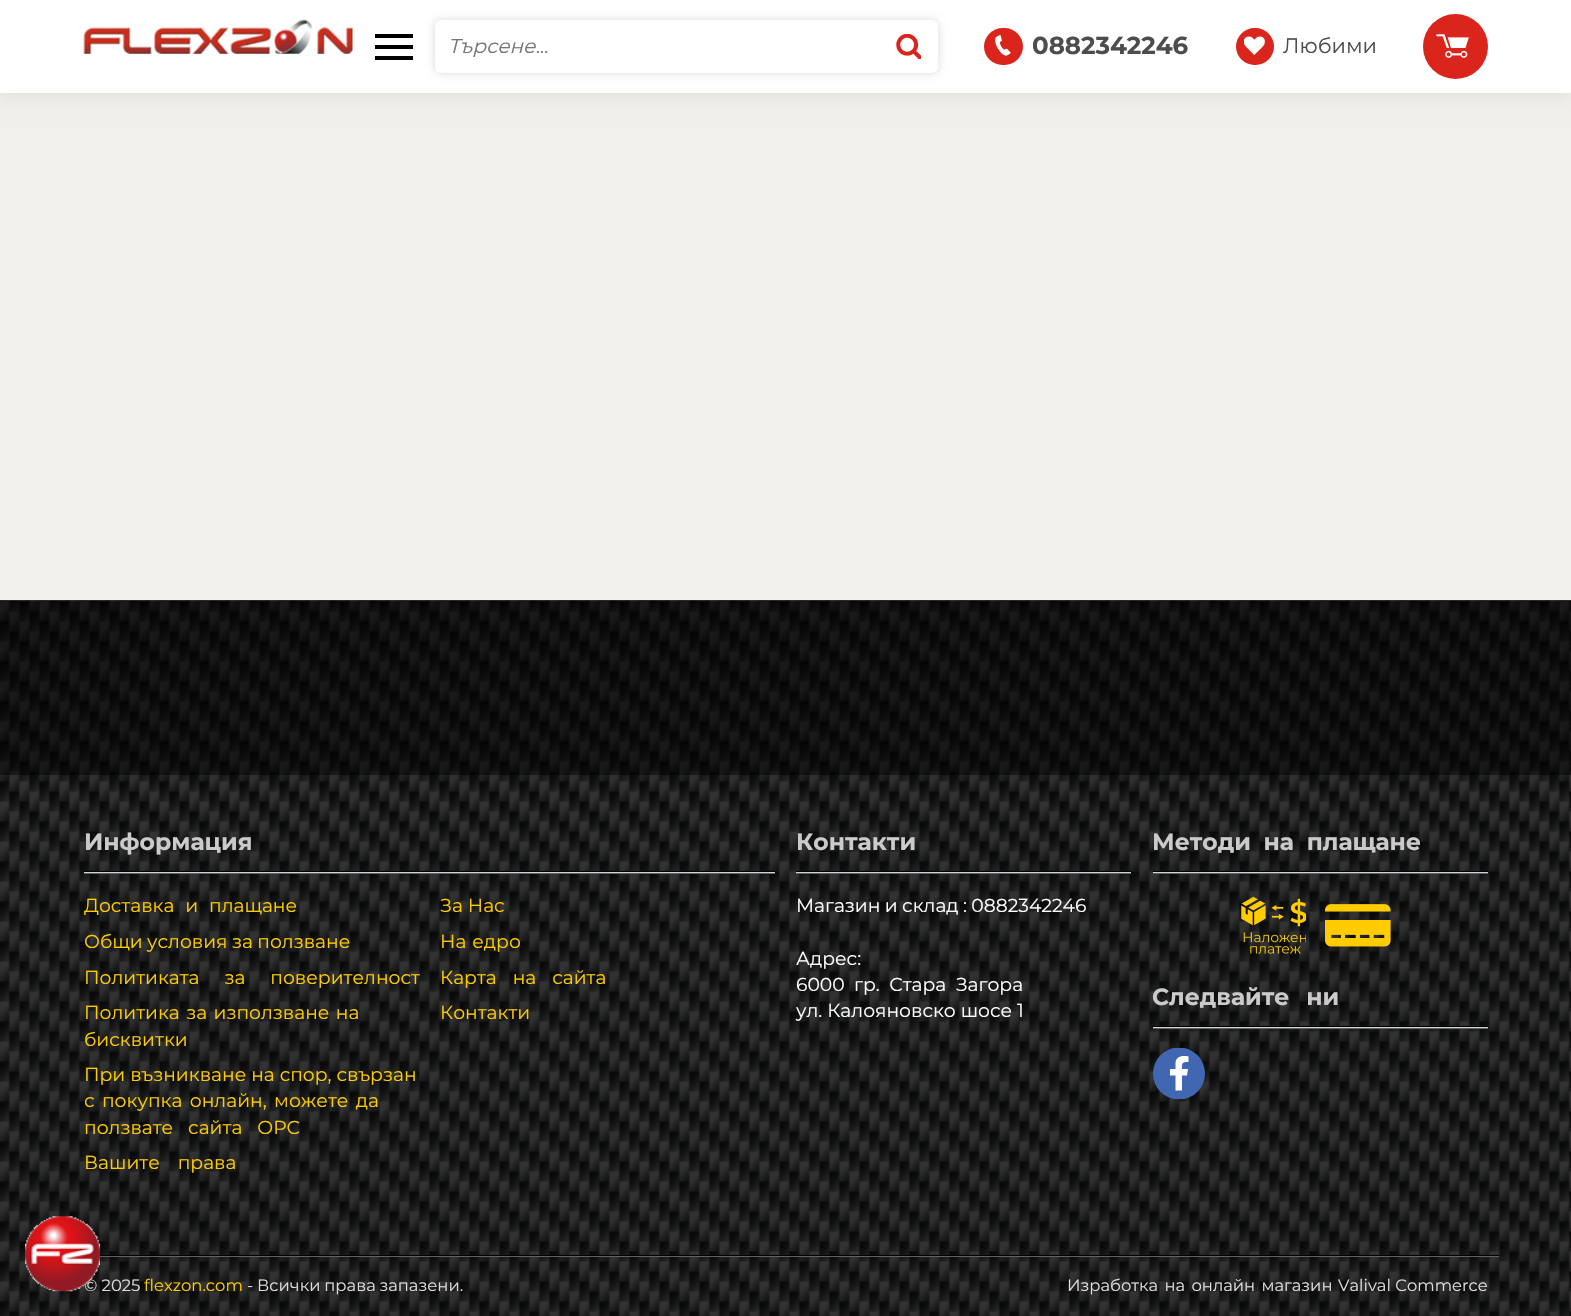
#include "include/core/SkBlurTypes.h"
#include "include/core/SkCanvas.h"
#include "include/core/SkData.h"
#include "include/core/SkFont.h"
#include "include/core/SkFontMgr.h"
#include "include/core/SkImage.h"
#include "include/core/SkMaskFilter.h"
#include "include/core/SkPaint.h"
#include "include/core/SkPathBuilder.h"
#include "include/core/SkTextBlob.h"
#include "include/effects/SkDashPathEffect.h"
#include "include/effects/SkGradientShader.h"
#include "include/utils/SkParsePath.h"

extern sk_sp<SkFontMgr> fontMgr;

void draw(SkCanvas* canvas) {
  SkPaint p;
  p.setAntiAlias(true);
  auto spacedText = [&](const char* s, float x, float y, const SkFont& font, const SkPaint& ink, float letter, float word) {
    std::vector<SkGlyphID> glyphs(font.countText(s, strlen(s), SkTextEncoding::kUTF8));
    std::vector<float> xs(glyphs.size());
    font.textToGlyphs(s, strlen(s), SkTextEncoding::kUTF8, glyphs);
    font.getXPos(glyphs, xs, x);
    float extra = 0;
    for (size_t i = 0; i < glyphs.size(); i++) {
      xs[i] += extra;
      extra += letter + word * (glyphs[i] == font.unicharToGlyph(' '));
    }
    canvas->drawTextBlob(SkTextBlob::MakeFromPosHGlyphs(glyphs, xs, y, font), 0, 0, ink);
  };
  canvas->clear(SkColorSetRGB(242, 240, 236));
  p.setColor(SkColorSetARGB(26, 0, 0, 0));
  p.setMaskFilter(SkMaskFilter::MakeBlur(kNormal_SkBlurStyle, 9.5f));
  canvas->drawRect(SkRect::MakeLTRB(0, 0, 1571, 93), p);
  p.setMaskFilter(nullptr);
  p.setColor(SK_ColorWHITE);
  canvas->drawRect(SkRect::MakeLTRB(0, 0, 1571, 93), p);
  canvas->drawImageRect(SkImages::DeferredFromEncodedData(SkData::MakeFromFileName("images/1.png")), SkRect::MakeLTRB(83, 19, 353, 54), SkSamplingOptions());
  p.setColor(SK_ColorBLACK);
  canvas->drawRect(SkRect::MakeLTRB(375, 45, 413, 49), p);
  canvas->drawRect(SkRect::MakeLTRB(375, 34, 413, 38), p);
  canvas->drawRect(SkRect::MakeLTRB(375, 56, 413, 60), p);
  p.setColor(SkColorSetARGB(38, 0, 0, 0));
  p.setMaskFilter(SkMaskFilter::MakeBlur(kNormal_SkBlurStyle, 4));
  canvas->drawRoundRect(SkRect::MakeLTRB(435, 20, 938, 73), 6, 6, p);
  p.setMaskFilter(nullptr);
  p.setColor(SK_ColorWHITE);
  canvas->drawRoundRect(SkRect::MakeLTRB(435, 20, 938, 73), 6, 6, p);
  canvas->drawImageRect(SkImages::DeferredFromEncodedData(SkData::MakeFromFileName("images/2.png")), SkRect::MakeLTRB(896, 34, 921, 59), SkSamplingOptions());
  p.setColor(SkColorSetRGB(217, 37, 28));
  canvas->drawRoundRect(SkRect::MakeLTRB(984, 28, 1023, 65), 18.5f, 18.5f, p);
  canvas->drawImageRect(SkImages::DeferredFromEncodedData(SkData::MakeFromFileName("images/3.png")), SkRect::MakeLTRB(995, 35, 1011, 56), SkSamplingOptions());
  canvas->drawRoundRect(SkRect::MakeLTRB(1236, 28, 1274, 65), 18.5f, 18.5f, p);
  canvas->drawImageRect(SkImages::DeferredFromEncodedData(SkData::MakeFromFileName("images/4.png")), SkRect::MakeLTRB(1244, 36, 1265, 55), SkSamplingOptions());
  canvas->drawCircle(1455.5f, 46.5f, 32.5f, p);
  canvas->drawImageRect(SkImages::DeferredFromEncodedData(SkData::MakeFromFileName("images/5.png")), SkRect::MakeLTRB(1436, 34, 1469, 58), SkSamplingOptions());
  canvas->drawImageRect(SkImages::DeferredFromEncodedData(SkData::MakeFromFileName("images/7.png")), SkRect::MakeLTRB(0, 600, 1571, 1316), SkSamplingOptions());
  p.setColor(SkColorSetARGB(128, 0, 0, 0));
  canvas->drawRect(SkRect::MakeLTRB(0, 600, 1571, 775), p);
  p.setColor(SkColorSetRGB(206, 212, 218));
  canvas->drawRect(SkRect::MakeLTRB(84, 872, 775, 873), p);
  p.setColor(SK_ColorBLACK);
  canvas->drawRect(SkRect::MakeLTRB(84, 871, 775, 872), p);
  p.setColor(SkColorSetRGB(97, 97, 97));
  canvas->drawRect(SkRect::MakeLTRB(84, 873, 775, 874), p);
  p.setColor(SkColorSetRGB(206, 212, 218));
  canvas->drawRect(SkRect::MakeLTRB(796, 872, 1131, 873), p);
  p.setColor(SK_ColorBLACK);
  canvas->drawRect(SkRect::MakeLTRB(796, 871, 1131, 872), p);
  p.setColor(SkColorSetRGB(97, 97, 97));
  canvas->drawRect(SkRect::MakeLTRB(796, 873, 1131, 874), p);
  p.setColor(SkColorSetRGB(206, 212, 218));
  canvas->drawRect(SkRect::MakeLTRB(1153, 872, 1488, 873), p);
  p.setColor(SK_ColorBLACK);
  canvas->drawRect(SkRect::MakeLTRB(1153, 871, 1488, 872), p);
  p.setColor(SkColorSetRGB(97, 97, 97));
  canvas->drawRect(SkRect::MakeLTRB(1153, 873, 1488, 874), p);
  canvas->drawImageRect(SkImages::DeferredFromEncodedData(SkData::MakeFromFileName("images/8.png")), SkRect::MakeLTRB(1241, 896, 1306, 954), SkSamplingOptions());
  canvas->drawImageRect(SkImages::DeferredFromEncodedData(SkData::MakeFromFileName("images/9.png")), SkRect::MakeLTRB(1325, 904, 1391, 947), SkSamplingOptions());
  p.setColor(SkColorSetRGB(206, 212, 218));
  canvas->drawRect(SkRect::MakeLTRB(1153, 1027, 1488, 1028), p);
  p.setColor(SK_ColorBLACK);
  canvas->drawRect(SkRect::MakeLTRB(1153, 1026, 1488, 1027), p);
  p.setColor(SkColorSetRGB(97, 97, 97));
  canvas->drawRect(SkRect::MakeLTRB(1153, 1028, 1488, 1029), p);
  canvas->save();
  canvas->clipRect(SkRect::MakeLTRB(1153, 1048, 1206, 1099));
  p.setColor(SkColorSetRGB(66, 103, 178));
  canvas->drawCircle(1179, 1073.5f, 26, p);
  canvas->restore();
  p.setColor(SK_ColorWHITE);
  canvas->drawPath(SkPathBuilder().moveTo(1187, 1075.5f).lineTo(1188, 1069).lineTo(1182, 1069).cubicTo(1182, 1063, 1181.5f, 1062, 1188.5f, 1062).lineTo(1188.5f, 1056.5f).cubicTo(1183, 1055.5f, 1176.5f, 1056, 1175.5f, 1062.5f).lineTo(1175.5f, 1069).lineTo(1170, 1069).lineTo(1170, 1075.5f).lineTo(1175.5f, 1075.5f).lineTo(1175.5f, 1090.5f).lineTo(1182, 1090.5f).lineTo(1182, 1075.5f).close().detach(), p);
  p.setColor(SK_ColorBLACK);
  canvas->drawRect(SkRect::MakeLTRB(100, 1255, 1499, 1256), p);
  p.setColor(SkColorSetRGB(97, 97, 97));
  canvas->drawRect(SkRect::MakeLTRB(100, 1256, 1499, 1257), p);
  SkFont font1(fontMgr->matchFamilyStyle("Montserrat", SkFontStyle::Italic()), 20);
  font1.setSubpixel(true);
  p.setColor(SkColorSetRGB(117, 117, 117));
  canvas->drawString("Търсене...", 448, 53, font1, p);
  SkFont font2(fontMgr->matchFamilyStyle("Montserrat", SkFontStyle::Bold()), 24.5f);
  font2.setSubpixel(true);
  p.setColor(SkColorSetRGB(77, 77, 77));
  canvas->drawString("0882342246", 1032, 54, font2, p);
  SkFont font3(fontMgr->matchFamilyStyle("Montserrat", SkFontStyle::Normal()), 21);
  font3.setSubpixel(true);
  canvas->drawString("Любими", 1283, 53, font3, p);
  SkFont font4(fontMgr->matchFamilyStyle("Montserrat", SkFontStyle::Bold()), 23.5f);
  font4.setSubpixel(true);
  p.setColor(SkColorSetRGB(203, 203, 203));
  canvas->drawString("Информация", 84, 850, font4, p);
  SkFont font5(fontMgr->matchFamilyStyle("Montserrat", SkFontStyle::Normal()), 18.75f);
  font5.setSubpixel(true);
  p.setColor(SkColorSetRGB(255, 204, 0));
  spacedText("Доставка и плащане", 84, 912, font5, p, 0, 6);
  spacedText("Общи условия за ползване", 84, 948, font5, p, 0, -0.5f);
  spacedText("Политиката за поверителност", 84, 984, font5, p, 0, 20);
  spacedText("Политика за използване на", 84, 1019, font5, p, 0, 1.5f);
  canvas->drawString("бисквитки", 84, 1046, font5, p);
  canvas->drawString("При възникване на спор, свързан", 84, 1081, font5, p);
  spacedText("с покупка онлайн, можете да", 84, 1107, font5, p, 0, 2.5f);
  spacedText("ползвате сайта ОРС", 84, 1134, font5, p, 0, 10);
  spacedText("Вашите права", 84, 1169, font5, p, 0, 13);
  canvas->drawString("За Нас", 440, 912, font5, p);
  spacedText("На едро", 440, 948, font5, p, 0, 1);
  spacedText("Карта на сайта", 440, 984, font5, p, 0, 11);
  canvas->drawString("Контакти", 440, 1019, font5, p);
  p.setColor(SkColorSetRGB(203, 203, 203));
  canvas->drawString("Контакти", 796, 850, font4, p);
  p.setColor(SK_ColorWHITE);
  spacedText("Магазин и склад : 0882342246", 796, 912, font5, p, 0, -0.5f);
  canvas->drawString("Адрес:", 796, 965, font5, p);
  spacedText("6000 гр. Стара Загора", 796, 991, font5, p, 0, 4.5f);
  canvas->drawString("ул. Калояновско шосе 1", 796, 1017, font5, p);
  p.setColor(SkColorSetRGB(203, 203, 203));
  spacedText("Методи на плащане", 1152, 850, font4, p, 0, 6);
  spacedText("Следвайте ни", 1152, 1005, font4, p, 0, 10);
  SkFont font6(fontMgr->matchFamilyStyle("Montserrat", SkFontStyle::Normal()), 16.4f);
  font6.setSubpixel(true);
  p.setColor(SkColorSetRGB(222, 222, 222));
  canvas->drawString("© 2025", 84, 1291, font6, p);
  canvas->drawImageRect(SkImages::DeferredFromEncodedData(SkData::MakeFromFileName("images/6.png")), SkRect::MakeLTRB(25, 1216, 100, 1292), SkSamplingOptions());
  p.setColor(SkColorSetRGB(255, 204, 0));
  canvas->drawString("flexzon.com", 144, 1291, font6, p);
  p.setColor(SkColorSetRGB(222, 222, 222));
  spacedText("- Всички права запазени.", 247, 1291, font6, p, 0, -0.5f);
  spacedText("Изработка на онлайн магазин", 1067, 1291, font6, p, 0, 2);
  canvas->drawString("Valival Commerce", 1338, 1291, font6, p);
}
